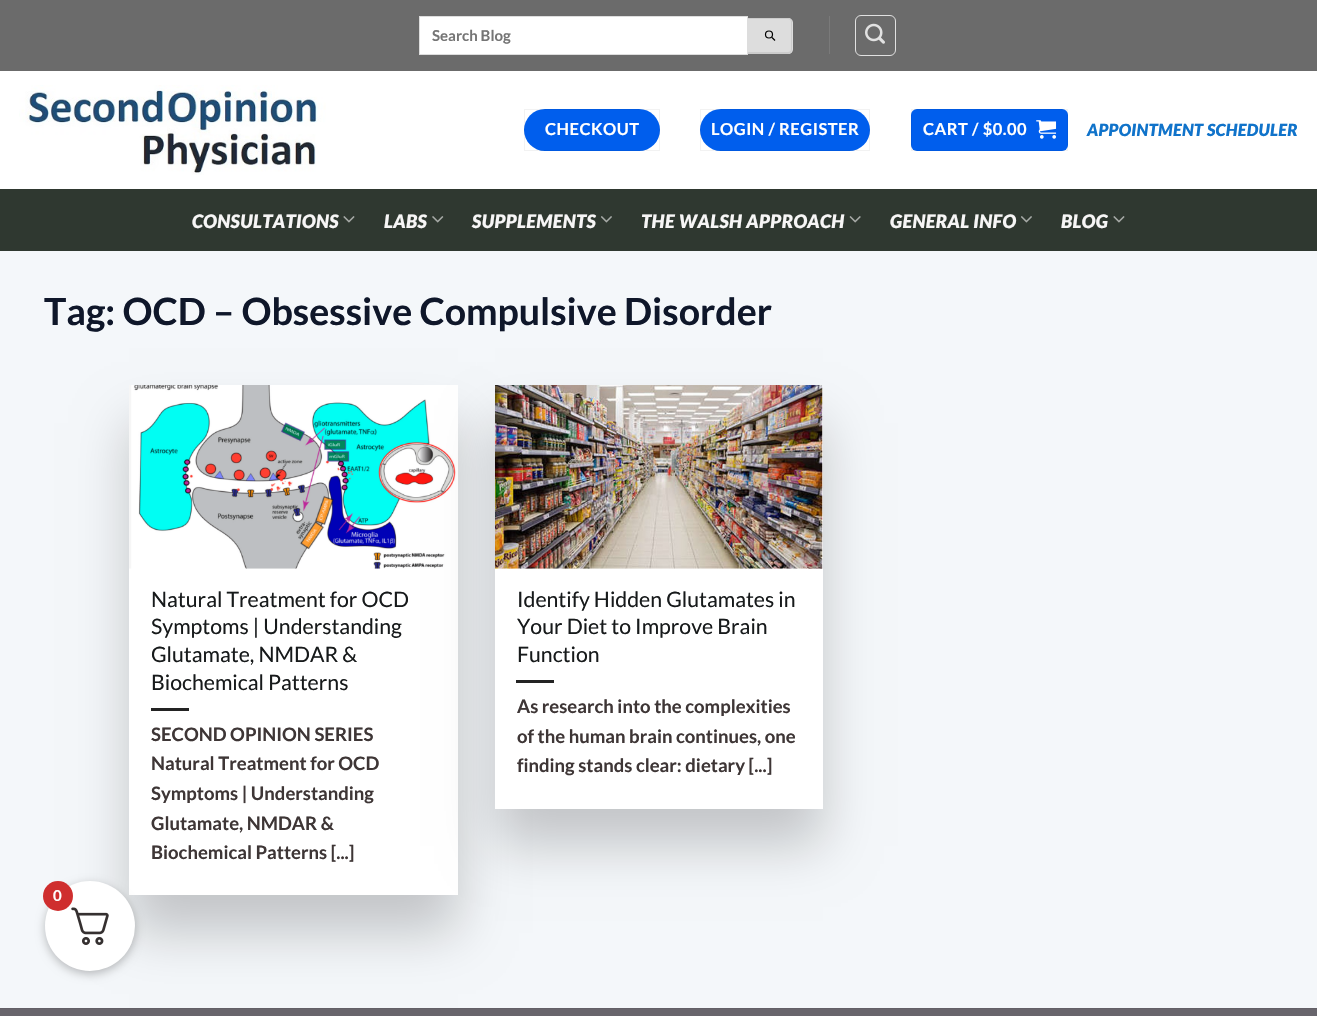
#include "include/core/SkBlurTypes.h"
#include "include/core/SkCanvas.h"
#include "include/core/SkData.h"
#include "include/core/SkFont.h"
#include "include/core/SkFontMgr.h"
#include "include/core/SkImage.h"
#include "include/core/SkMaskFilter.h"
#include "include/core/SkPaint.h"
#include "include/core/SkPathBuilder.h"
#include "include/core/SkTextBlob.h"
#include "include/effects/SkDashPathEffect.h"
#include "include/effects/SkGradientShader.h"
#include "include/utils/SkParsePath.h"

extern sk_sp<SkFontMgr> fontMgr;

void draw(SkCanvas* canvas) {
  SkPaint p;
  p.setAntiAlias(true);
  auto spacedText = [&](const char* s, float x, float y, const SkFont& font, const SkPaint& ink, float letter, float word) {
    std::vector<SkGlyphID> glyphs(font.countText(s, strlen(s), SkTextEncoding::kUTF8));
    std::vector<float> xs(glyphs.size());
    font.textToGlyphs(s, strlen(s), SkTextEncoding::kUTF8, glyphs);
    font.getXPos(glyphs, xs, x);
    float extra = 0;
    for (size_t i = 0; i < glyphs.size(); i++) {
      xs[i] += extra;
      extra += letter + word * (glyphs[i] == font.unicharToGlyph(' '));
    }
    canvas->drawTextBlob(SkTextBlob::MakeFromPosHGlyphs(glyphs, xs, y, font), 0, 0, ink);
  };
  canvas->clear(SkColorSetRGB(244, 247, 250));
  p.setColor(SkColorSetRGB(107, 107, 107));
  canvas->drawRect(SkRect::MakeLTRB(0, 0, 1317, 71), p);
  p.setColor(SK_ColorWHITE);
  canvas->drawRect(SkRect::MakeLTRB(419.5f, 16.5f, 747.5f, 54.5f), p);
  p.setStyle(SkPaint::kStroke_Style);
  p.setStrokeWidth(1);
  p.setColor(SkColorSetRGB(221, 221, 221));
  canvas->drawRect(SkRect::MakeLTRB(419.5f, 16.5f, 747.5f, 54.5f), p);
  p.setStyle(SkPaint::kFill_Style);
  canvas->drawPath(SkPathBuilder().moveTo(748, 18).lineTo(788, 18).cubicTo(791, 18, 793, 20, 793, 23).lineTo(793, 49).cubicTo(793, 52, 791, 54, 788, 54).lineTo(748, 54).close().detach(), p);
  p.setColor(SkColorSetRGB(204, 204, 204));
  canvas->drawPath(SkPathBuilder(SkPathFillType::kEvenOdd).moveTo(748, 18).lineTo(788, 18).cubicTo(790, 18, 792, 20, 792, 22).lineTo(792, 49).cubicTo(792, 52, 790, 54, 788, 54).lineTo(748, 54).close().moveTo(748, 19).lineTo(788, 19).cubicTo(790, 19, 791, 20, 791, 22).lineTo(791, 49).cubicTo(791, 51, 790, 52, 788, 52).lineTo(748, 52).close().detach(), p);
  p.setStyle(SkPaint::kStroke_Style);
  p.setStrokeWidth(1.2f);
  p.setColor(SK_ColorBLACK);
  canvas->drawCircle(769, 34.5f, 3.5f, p);
  canvas->drawPath(SkPathBuilder().moveTo(772, 37.5f).lineTo(775, 40.5f).detach(), p);
  p.setStyle(SkPaint::kFill_Style);
  p.setColor(SkColorSetRGB(122, 122, 122));
  canvas->drawRect(SkRect::MakeLTRB(829, 16, 830, 54), p);
  p.setStyle(SkPaint::kStroke_Style);
  p.setStrokeWidth(1);
  p.setColor(SkColorSetRGB(225, 225, 225));
  canvas->drawRoundRect(SkRect::MakeLTRB(855.5f, 15.5f, 895.5f, 55.5f), 5.5f, 5.5f, p);
  canvas->drawImageRect(SkImages::DeferredFromEncodedData(SkData::MakeFromFileName("images/1.png")), SkRect::MakeLTRB(865, 23, 885, 44), SkSamplingOptions());
  p.setStyle(SkPaint::kFill_Style);
  p.setColor(SK_ColorWHITE);
  canvas->drawRect(SkRect::MakeLTRB(0, 71, 1317, 189), p);
  canvas->drawImageRect(SkImages::DeferredFromEncodedData(SkData::MakeFromFileName("images/2.png")), SkRect::MakeLTRB(19, 85, 326, 175), SkSamplingOptions());
  p.setColor(SkColorSetRGB(0, 94, 237));
  canvas->drawRoundRect(SkRect::MakeLTRB(524, 109, 660, 151), 21, 21, p);
  p.setStyle(SkPaint::kStroke_Style);
  p.setColor(SkColorSetARGB(13, 0, 0, 0));
  canvas->drawRect(SkRect::MakeLTRB(524.5f, 109.5f, 659.5f, 150.5f), p);
  p.setStyle(SkPaint::kFill_Style);
  p.setColor(SkColorSetRGB(0, 94, 237));
  canvas->drawRoundRect(SkRect::MakeLTRB(700, 109, 870, 151), 21, 21, p);
  p.setStyle(SkPaint::kStroke_Style);
  p.setColor(SkColorSetARGB(13, 0, 0, 0));
  canvas->drawRect(SkRect::MakeLTRB(700.5f, 109.5f, 869.5f, 150.5f), p);
  p.setStyle(SkPaint::kFill_Style);
  p.setColor(SkColorSetRGB(0, 94, 237));
  canvas->drawRoundRect(SkRect::MakeLTRB(911, 109, 1068, 151), 6, 6, p);
  p.setStyle(SkPaint::kStroke_Style);
  p.setColor(SkColorSetARGB(13, 0, 0, 0));
  canvas->drawRect(SkRect::MakeLTRB(911.5f, 109.5f, 1067.5f, 150.5f), p);
  canvas->drawImageRect(SkImages::DeferredFromEncodedData(SkData::MakeFromFileName("images/3.png")), SkRect::MakeLTRB(1036, 120, 1057, 139), SkSamplingOptions());
  p.setStyle(SkPaint::kFill_Style);
  p.setColor(SkColorSetRGB(47, 56, 48));
  canvas->drawRect(SkRect::MakeLTRB(0, 189, 1317, 251), p);
  canvas->drawImageRect(SkImages::DeferredFromEncodedData(SkData::MakeFromFileName("images/4.png")), SkRect::MakeLTRB(343, 216, 355, 223), SkSamplingOptions());
  canvas->drawImageRect(SkImages::DeferredFromEncodedData(SkData::MakeFromFileName("images/5.png")), SkRect::MakeLTRB(432, 216, 444, 223), SkSamplingOptions());
  canvas->drawImageRect(SkImages::DeferredFromEncodedData(SkData::MakeFromFileName("images/6.png")), SkRect::MakeLTRB(601, 216, 612, 223), SkSamplingOptions());
  canvas->drawImageRect(SkImages::DeferredFromEncodedData(SkData::MakeFromFileName("images/7.png")), SkRect::MakeLTRB(849, 216, 861, 223), SkSamplingOptions());
  canvas->drawImageRect(SkImages::DeferredFromEncodedData(SkData::MakeFromFileName("images/6.png")), SkRect::MakeLTRB(1021, 216, 1032, 223), SkSamplingOptions());
  canvas->drawImageRect(SkImages::DeferredFromEncodedData(SkData::MakeFromFileName("images/4.png")), SkRect::MakeLTRB(1113, 216, 1125, 223), SkSamplingOptions());
  p.setColor(SkColorSetARGB(51, 0, 0, 0));
  p.setMaskFilter(SkMaskFilter::MakeBlur(kNormal_SkBlurStyle, 25));
  canvas->drawRect(SkRect::MakeLTRB(129, 423, 458, 933), p);
  p.setMaskFilter(nullptr);
  p.setColor(SK_ColorWHITE);
  canvas->drawRect(SkRect::MakeLTRB(129, 385, 458, 895), p);
  canvas->drawImageRect(SkImages::DeferredFromEncodedData(SkData::MakeFromFileName("images/8.png")), SkRect::MakeLTRB(129, 385, 456, 569), SkSamplingOptions());
  p.setColor(SkColorSetRGB(35, 35, 35));
  canvas->drawRect(SkRect::MakeLTRB(151, 708, 189, 711), p);
  p.setColor(SkColorSetARGB(51, 0, 0, 0));
  p.setMaskFilter(SkMaskFilter::MakeBlur(kNormal_SkBlurStyle, 25));
  canvas->drawRect(SkRect::MakeLTRB(495, 423, 823, 846), p);
  p.setMaskFilter(nullptr);
  p.setColor(SK_ColorWHITE);
  canvas->drawRect(SkRect::MakeLTRB(495, 385, 823, 809), p);
  canvas->drawImageRect(SkImages::DeferredFromEncodedData(SkData::MakeFromFileName("images/9.png")), SkRect::MakeLTRB(495, 385, 823, 569), SkSamplingOptions());
  p.setColor(SkColorSetRGB(35, 35, 35));
  canvas->drawRect(SkRect::MakeLTRB(516, 680, 554, 683), p);
  p.setColor(SkColorSetRGB(104, 101, 108));
  canvas->drawRect(SkRect::MakeLTRB(0, 1009, 1317, 1016), p);
  p.setColor(SkColorSetRGB(99, 96, 103));
  canvas->drawRect(SkRect::MakeLTRB(0, 1008, 1317, 1009), p);
  p.setColor(SkColorSetARGB(64, 0, 0, 0));
  p.setMaskFilter(SkMaskFilter::MakeBlur(kNormal_SkBlurStyle, 5));
  canvas->drawRoundRect(SkRect::MakeLTRB(45, 884, 135, 974), 45, 45, p);
  p.setMaskFilter(nullptr);
  p.setColor(SK_ColorWHITE);
  canvas->drawCircle(90, 926, 45, p);
  canvas->drawImageRect(SkImages::DeferredFromEncodedData(SkData::MakeFromFileName("images/10.png")), SkRect::MakeLTRB(71, 907, 109, 945), SkSamplingOptions());
  p.setColor(SkColorSetRGB(207, 46, 46));
  canvas->drawCircle(58, 896, 15, p);
  SkFont font1(fontMgr->matchFamilyStyle("Lato", SkFontStyle::Bold()), 15);
  font1.setSubpixel(true);
  p.setColor(SkColorSetRGB(117, 117, 117));
  canvas->drawString("Search Blog", 432, 41, font1, p);
  SkFont font2(fontMgr->matchFamilyStyle("Lato", SkFontStyle::Bold()), 16.5f);
  font2.setSubpixel(true);
  p.setColor(SK_ColorWHITE);
  spacedText("CHECKOUT", 545, 135, font2, p, 0.5f, 0);
  spacedText("LOGIN / REGISTER", 711, 135, font2, p, 0.5f, 0);
  spacedText("CART / $0.00", 923, 135, font2, p, 0.5f, 0);
  SkFont font3(fontMgr->matchFamilyStyle("Lato", SkFontStyle(900, SkFontStyle::kNormal_Width, SkFontStyle::kItalic_Slant)), 16.75f);
  font3.setSubpixel(true);
  p.setColor(SkColorSetRGB(16, 115, 202));
  spacedText("APPOINTMENT SCHEDULER", 1087, 136, font3, p, 0.3f, 0);
  SkFont font4(fontMgr->matchFamilyStyle("Lato", SkFontStyle(900, SkFontStyle::kNormal_Width, SkFontStyle::kItalic_Slant)), 18.5f);
  font4.setSubpixel(true);
  p.setColor(SkColorSetRGB(247, 246, 246));
  spacedText("CONSULTATIONS", 192, 228, font4, p, 0.4f, 0);
  spacedText("LABS", 384, 228, font4, p, 0.4f, 0);
  spacedText("SUPPLEMENTS", 472, 228, font4, p, 0.4f, 0);
  spacedText("THE WALSH APPROACH", 641, 228, font4, p, 0.4f, 0);
  spacedText("GENERAL INFO", 890, 228, font4, p, 0.4f, 0);
  spacedText("BLOG", 1061, 228, font4, p, 0.4f, 0);
  SkFont font5(fontMgr->matchFamilyStyle("Lato", SkFontStyle::Bold()), 37.5f);
  font5.setSubpixel(true);
  p.setColor(SkColorSetRGB(15, 23, 42));
  canvas->drawString("Tag: OCD – Obsessive Compulsive Disorder", 44, 325, font5, p);
  SkFont font6(fontMgr->matchFamilyStyle("Lato", SkFontStyle::Normal()), 21.25f);
  font6.setSubpixel(true);
  p.setColor(SkColorSetRGB(23, 26, 27));
  canvas->drawString("Natural Treatment for OCD", 151, 607, font6, p);
  canvas->drawString("Symptoms | Understanding", 151, 634, font6, p);
  canvas->drawString("Glutamate, NMDAR &", 151, 662, font6, p);
  canvas->drawString("Biochemical Patterns", 151, 690, font6, p);
  SkFont font7(fontMgr->matchFamilyStyle("Lato", SkFontStyle::Bold()), 18.5f);
  font7.setSubpixel(true);
  p.setColor(SkColorSetRGB(62, 54, 54));
  canvas->drawString("SECOND OPINION SERIES", 151, 741, font7, p);
  canvas->drawString("Natural Treatment for OCD", 151, 770, font7, p);
  canvas->drawString("Symptoms | Understanding", 151, 800, font7, p);
  canvas->drawString("Glutamate, NMDAR &", 151, 830, font7, p);
  canvas->drawString("Biochemical Patterns [...]", 151, 859, font7, p);
  p.setColor(SkColorSetRGB(23, 26, 27));
  canvas->drawString("Identify Hidden Glutamates in", 517, 607, font6, p);
  canvas->drawString("Your Diet to Improve Brain", 517, 634, font6, p);
  canvas->drawString("Function", 517, 662, font6, p);
  p.setColor(SkColorSetRGB(62, 54, 54));
  canvas->drawString("As research into the complexities", 517, 713, font7, p);
  canvas->drawString("of the human brain continues, one", 517, 743, font7, p);
  canvas->drawString("finding stands clear: dietary [...]", 517, 772, font7, p);
  p.setColor(SK_ColorWHITE);
  canvas->drawString("0", 53, 901, font1, p);
}
